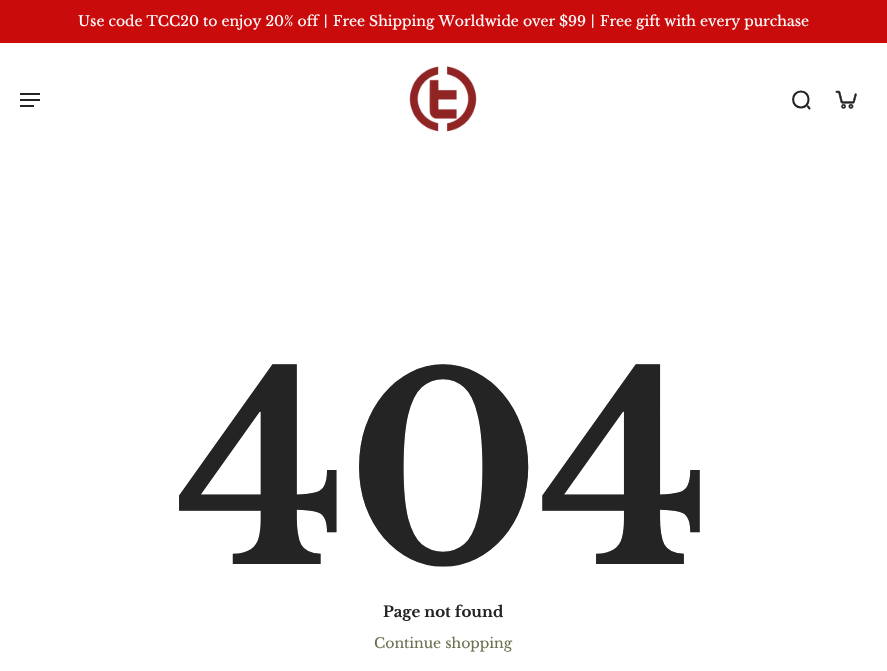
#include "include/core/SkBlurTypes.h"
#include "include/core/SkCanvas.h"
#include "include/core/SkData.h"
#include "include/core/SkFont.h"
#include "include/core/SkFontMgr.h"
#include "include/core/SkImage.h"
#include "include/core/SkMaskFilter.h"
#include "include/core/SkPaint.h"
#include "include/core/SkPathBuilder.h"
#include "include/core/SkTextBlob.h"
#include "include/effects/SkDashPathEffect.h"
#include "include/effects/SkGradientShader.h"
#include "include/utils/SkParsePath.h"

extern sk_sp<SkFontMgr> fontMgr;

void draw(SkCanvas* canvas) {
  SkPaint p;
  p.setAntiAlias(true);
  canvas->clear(SK_ColorWHITE);
  p.setColor(SkColorSetRGB(201, 11, 11));
  canvas->drawRect(SkRect::MakeLTRB(0, 0, 887, 43), p);
  canvas->drawImageRect(SkImages::DeferredFromEncodedData(SkData::MakeFromFileName("images/1.png")), SkRect::MakeLTRB(20, 93, 40, 107), SkSamplingOptions());
  canvas->drawImageRect(SkImages::DeferredFromEncodedData(SkData::MakeFromFileName("images/2.png")), SkRect::MakeLTRB(409, 66, 477, 132), SkSamplingOptions());
  p.setStyle(SkPaint::kStroke_Style);
  p.setStrokeWidth(2.1f);
  p.setStrokeCap(SkPaint::kRound_Cap);
  p.setStrokeJoin(SkPaint::kRound_Join);
  p.setColor(SkColorSetRGB(36, 36, 36));
  canvas->drawPath(SkPathBuilder().moveTo(801, 107.5f).cubicTo(811, 107.5f, 811, 91.5f, 801, 91.5f).cubicTo(790.5f, 91.5f, 790.5f, 107.5f, 801, 107.5f).close().moveTo(809.5f, 108.5f).lineTo(808, 106.5f).detach(), p);
  canvas->drawImageRect(SkImages::DeferredFromEncodedData(SkData::MakeFromFileName("images/3.png")), SkRect::MakeLTRB(835, 90, 857, 109), SkSamplingOptions());
  SkFont font1(fontMgr->matchFamilyStyle("Libre Baskerville", SkFontStyle::Normal()), 14);
  font1.setSubpixel(true);
  p.setStyle(SkPaint::kFill_Style);
  p.setColor(SK_ColorWHITE);
  canvas->drawString("Use code TCC20 to enjoy 20% off", 78, 26, font1, p);
  SkFont font2(fontMgr->matchFamilyStyle("WenQuanYi Zen Hei", SkFontStyle(500, SkFontStyle::kNormal_Width, SkFontStyle::kUpright_Slant)), 14);
  font2.setSubpixel(true);
  canvas->drawString("丨", 319, 26, font2, p);
  canvas->drawString("Free Shipping Worldwide over $99", 333, 26, font1, p);
  canvas->drawString("丨", 586, 26, font2, p);
  canvas->drawString("Free gift with every purchase", 600, 26, font1, p);
  SkFont font3(fontMgr->matchFamilyStyle("Libre Baskerville", SkFontStyle::Bold()), 256);
  font3.setSubpixel(true);
  p.setColor(SkColorSetRGB(36, 36, 36));
  canvas->drawString("404", 177, 564, font3, p);
  SkFont font4(fontMgr->matchFamilyStyle("Libre Baskerville", SkFontStyle::Bold()), 15);
  font4.setSubpixel(true);
  canvas->drawString("Page not found", 383, 617, font4, p);
  p.setColor(SkColorSetRGB(107, 112, 80));
  canvas->drawString("Continue shopping", 374, 648, font1, p);
}
